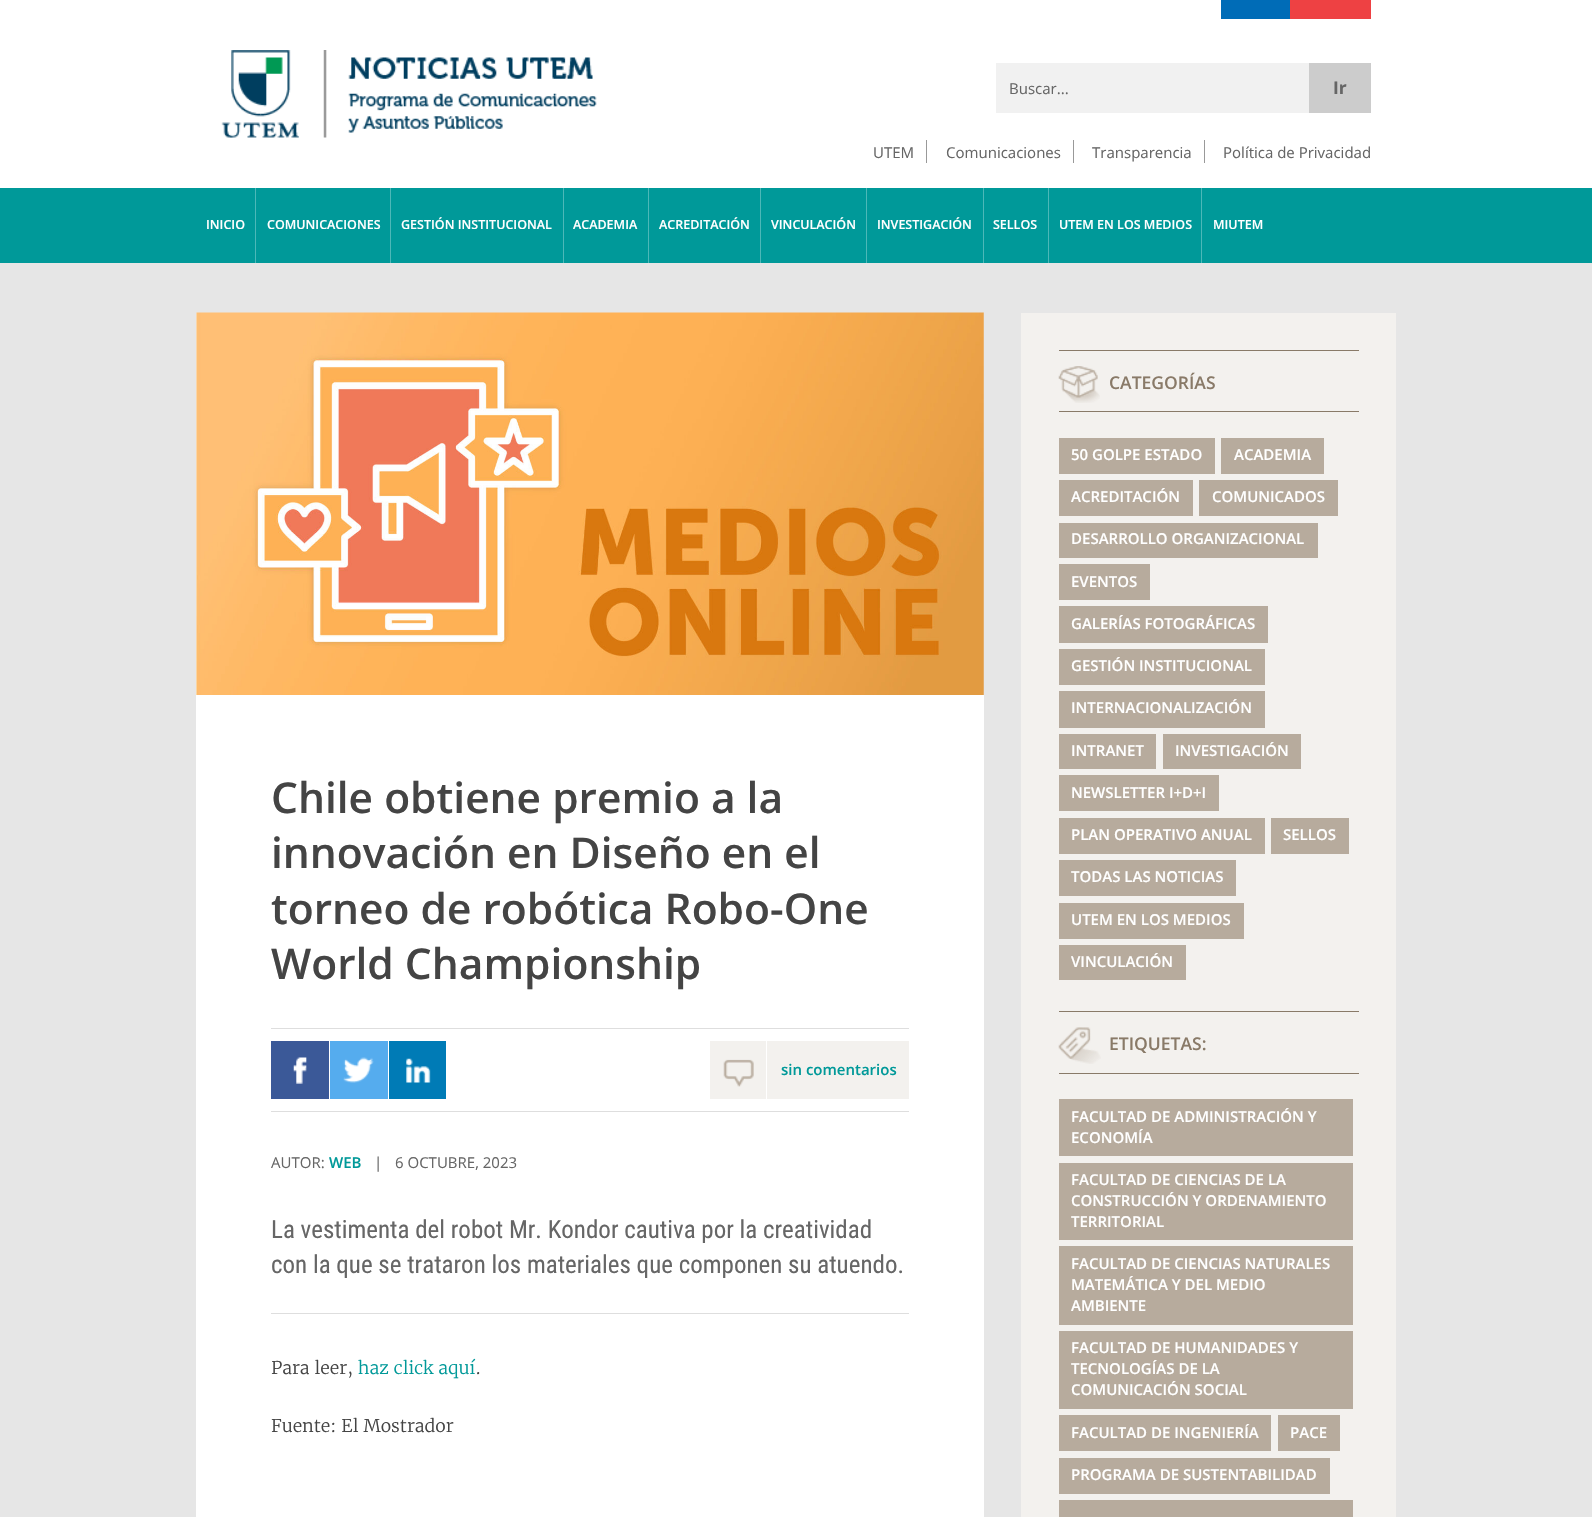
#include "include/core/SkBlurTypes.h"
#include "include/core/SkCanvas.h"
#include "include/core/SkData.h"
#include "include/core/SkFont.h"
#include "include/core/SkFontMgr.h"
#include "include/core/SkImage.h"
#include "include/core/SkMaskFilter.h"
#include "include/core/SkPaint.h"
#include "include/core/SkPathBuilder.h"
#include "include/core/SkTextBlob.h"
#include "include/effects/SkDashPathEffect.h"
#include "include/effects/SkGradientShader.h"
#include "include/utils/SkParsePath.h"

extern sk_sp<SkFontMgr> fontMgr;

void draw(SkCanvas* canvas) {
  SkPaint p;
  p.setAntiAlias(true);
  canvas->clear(SkColorSetRGB(230, 230, 230));
  p.setColor(SK_ColorWHITE);
  canvas->drawRect(SkRect::MakeLTRB(0, 0, 1592, 188), p);
  p.setColor(SkColorSetRGB(238, 65, 67));
  canvas->drawRect(SkRect::MakeLTRB(1290, 0, 1371, 19), p);
  p.setColor(SkColorSetRGB(0, 108, 183));
  canvas->drawRect(SkRect::MakeLTRB(1221, 0, 1290, 19), p);
  canvas->drawImageRect(SkImages::DeferredFromEncodedData(SkData::MakeFromFileName("images/1.png")), SkRect::MakeLTRB(221, 50, 597, 138), SkSamplingOptions());
  p.setColor(SkColorSetRGB(241, 241, 241));
  canvas->drawRect(SkRect::MakeLTRB(996, 63, 1309, 113), p);
  p.setColor(SkColorSetRGB(204, 204, 204));
  canvas->drawRect(SkRect::MakeLTRB(1309, 63, 1371, 113), p);
  p.setColor(SkColorSetRGB(153, 153, 153));
  canvas->drawRect(SkRect::MakeLTRB(926, 140, 927, 163), p);
  canvas->drawRect(SkRect::MakeLTRB(1073, 140, 1074, 163), p);
  canvas->drawRect(SkRect::MakeLTRB(1204, 140, 1205, 163), p);
  p.setColor(SkColorSetRGB(0, 153, 153));
  canvas->drawRect(SkRect::MakeLTRB(0, 188, 1592, 263), p);
  p.setColor(SkColorSetRGB(77, 184, 184));
  canvas->drawRect(SkRect::MakeLTRB(255, 188, 256, 263), p);
  canvas->drawRect(SkRect::MakeLTRB(390, 188, 391, 263), p);
  canvas->drawRect(SkRect::MakeLTRB(563, 188, 564, 263), p);
  canvas->drawRect(SkRect::MakeLTRB(648, 188, 649, 263), p);
  canvas->drawRect(SkRect::MakeLTRB(760, 188, 761, 263), p);
  canvas->drawRect(SkRect::MakeLTRB(866, 188, 867, 263), p);
  canvas->drawRect(SkRect::MakeLTRB(983, 188, 984, 263), p);
  canvas->drawRect(SkRect::MakeLTRB(1048, 188, 1049, 263), p);
  canvas->drawRect(SkRect::MakeLTRB(1201, 188, 1202, 263), p);
  canvas->drawImageRect(SkImages::DeferredFromEncodedData(SkData::MakeFromFileName("images/2.png")), SkRect::MakeLTRB(196, 312, 984, 695), SkSamplingOptions());
  p.setColor(SK_ColorWHITE);
  canvas->drawRect(SkRect::MakeLTRB(196, 695, 984, 1517), p);
  p.setColor(SkColorSetRGB(222, 222, 222));
  canvas->drawRect(SkRect::MakeLTRB(271, 1028, 909, 1029), p);
  canvas->drawRect(SkRect::MakeLTRB(271, 1111, 909, 1112), p);
  p.setColor(SkColorSetRGB(59, 89, 152));
  canvas->drawRect(SkRect::MakeLTRB(271, 1041, 329, 1099), p);
  canvas->drawImageRect(SkImages::DeferredFromEncodedData(SkData::MakeFromFileName("images/3.png")), SkRect::MakeLTRB(293, 1057, 307, 1084), SkSamplingOptions());
  p.setColor(SkColorSetRGB(85, 172, 238));
  canvas->drawRect(SkRect::MakeLTRB(330, 1041, 388, 1099), p);
  canvas->drawImageRect(SkImages::DeferredFromEncodedData(SkData::MakeFromFileName("images/4.png")), SkRect::MakeLTRB(343, 1057, 374, 1083), SkSamplingOptions());
  p.setColor(SkColorSetRGB(0, 123, 182));
  canvas->drawRect(SkRect::MakeLTRB(389, 1041, 446, 1099), p);
  canvas->drawImageRect(SkImages::DeferredFromEncodedData(SkData::MakeFromFileName("images/5.png")), SkRect::MakeLTRB(406, 1058, 431, 1083), SkSamplingOptions());
  p.setColor(SkColorSetRGB(243, 241, 238));
  canvas->drawRect(SkRect::MakeLTRB(710, 1041, 909, 1099), p);
  p.setColor(SK_ColorWHITE);
  canvas->drawRect(SkRect::MakeLTRB(766, 1041, 767, 1099), p);
  canvas->drawImageRect(SkImages::DeferredFromEncodedData(SkData::MakeFromFileName("images/6.png")), SkRect::MakeLTRB(723, 1059, 754, 1087), SkSamplingOptions());
  p.setColor(SkColorSetRGB(222, 222, 222));
  canvas->drawRect(SkRect::MakeLTRB(271, 1313, 909, 1314), p);
  p.setColor(SkColorSetRGB(243, 241, 238));
  canvas->drawRect(SkRect::MakeLTRB(1021, 313, 1396, 1517), p);
  p.setColor(SkColorSetRGB(137, 122, 104));
  canvas->drawRect(SkRect::MakeLTRB(1059, 350, 1359, 351), p);
  canvas->drawRect(SkRect::MakeLTRB(1059, 411, 1359, 412), p);
  canvas->drawImageRect(SkImages::DeferredFromEncodedData(SkData::MakeFromFileName("images/7.png")), SkRect::MakeLTRB(1058, 366, 1100, 403), SkSamplingOptions());
  p.setColor(SkColorSetRGB(183, 171, 157));
  canvas->drawRect(SkRect::MakeLTRB(1059, 438, 1215, 474), p);
  canvas->drawRect(SkRect::MakeLTRB(1221, 438, 1324, 474), p);
  canvas->drawRect(SkRect::MakeLTRB(1059, 480, 1193, 516), p);
  canvas->drawRect(SkRect::MakeLTRB(1199, 480, 1338, 516), p);
  canvas->drawRect(SkRect::MakeLTRB(1059, 523, 1318, 558), p);
  canvas->drawRect(SkRect::MakeLTRB(1059, 564, 1150, 600), p);
  canvas->drawRect(SkRect::MakeLTRB(1059, 606, 1268, 643), p);
  canvas->drawRect(SkRect::MakeLTRB(1059, 649, 1265, 685), p);
  canvas->drawRect(SkRect::MakeLTRB(1059, 691, 1265, 728), p);
  canvas->drawRect(SkRect::MakeLTRB(1059, 734, 1156, 769), p);
  canvas->drawRect(SkRect::MakeLTRB(1163, 734, 1301, 769), p);
  canvas->drawRect(SkRect::MakeLTRB(1059, 775, 1219, 811), p);
  canvas->drawRect(SkRect::MakeLTRB(1059, 818, 1265, 854), p);
  canvas->drawRect(SkRect::MakeLTRB(1271, 818, 1349, 854), p);
  canvas->drawRect(SkRect::MakeLTRB(1059, 860, 1236, 896), p);
  canvas->drawRect(SkRect::MakeLTRB(1059, 903, 1244, 939), p);
  canvas->drawRect(SkRect::MakeLTRB(1059, 945, 1186, 980), p);
  p.setColor(SkColorSetRGB(137, 122, 104));
  canvas->drawRect(SkRect::MakeLTRB(1059, 1011, 1359, 1012), p);
  canvas->drawRect(SkRect::MakeLTRB(1059, 1073, 1359, 1074), p);
  canvas->drawImageRect(SkImages::DeferredFromEncodedData(SkData::MakeFromFileName("images/8.png")), SkRect::MakeLTRB(1058, 1027, 1101, 1064), SkSamplingOptions());
  p.setColor(SkColorSetRGB(183, 171, 157));
  canvas->drawRect(SkRect::MakeLTRB(1059, 1099, 1353, 1156), p);
  canvas->drawRect(SkRect::MakeLTRB(1059, 1163, 1353, 1240), p);
  canvas->drawRect(SkRect::MakeLTRB(1059, 1246, 1353, 1325), p);
  canvas->drawRect(SkRect::MakeLTRB(1059, 1331, 1353, 1409), p);
  canvas->drawRect(SkRect::MakeLTRB(1059, 1415, 1271, 1451), p);
  canvas->drawRect(SkRect::MakeLTRB(1278, 1415, 1340, 1451), p);
  canvas->drawRect(SkRect::MakeLTRB(1059, 1458, 1330, 1494), p);
  canvas->drawRect(SkRect::MakeLTRB(1059, 1500, 1353, 1517), p);
  SkFont font1(fontMgr->matchFamilyStyle("Open Sans", SkFontStyle::Normal()), 15);
  font1.setSubpixel(true);
  p.setColor(SkColorSetRGB(102, 102, 102));
  canvas->drawString("Buscar...", 1009, 94, font1, p);
  SkFont font2(fontMgr->matchFamilyStyle("Open Sans", SkFontStyle::Bold()), 17.5f);
  font2.setSubpixel(true);
  canvas->drawString("Ir", 1333, 94, font2, p);
  canvas->drawString("UTEM", 873, 158, font1, p);
  canvas->drawString("Comunicaciones", 946, 158, font1, p);
  canvas->drawString("Transparencia", 1092, 158, font1, p);
  canvas->drawString("Política de Privacidad", 1223, 158, font1, p);
  SkFont font3(fontMgr->matchFamilyStyle("Open Sans", SkFontStyle(600, SkFontStyle::kNormal_Width, SkFontStyle::kUpright_Slant)), 12.5f);
  font3.setSubpixel(true);
  p.setColor(SK_ColorWHITE);
  canvas->drawString("INICIO", 206, 229, font3, p);
  canvas->drawString("COMUNICACIONES", 267, 229, font3, p);
  canvas->drawString("GESTIÓN INSTITUCIONAL", 401, 229, font3, p);
  canvas->drawString("ACADEMIA", 573, 229, font3, p);
  canvas->drawString("ACREDITACIÓN", 659, 229, font3, p);
  canvas->drawString("VINCULACIÓN", 771, 229, font3, p);
  canvas->drawString("INVESTIGACIÓN", 877, 229, font3, p);
  canvas->drawString("SELLOS", 993, 229, font3, p);
  canvas->drawString("UTEM EN LOS MEDIOS", 1059, 229, font3, p);
  canvas->drawString("MIUTEM", 1213, 229, font3, p);
  SkFont font4(fontMgr->matchFamilyStyle("Open Sans", SkFontStyle(600, SkFontStyle::kNormal_Width, SkFontStyle::kUpright_Slant)), 42.5f);
  font4.setSubpixel(true);
  p.setColor(SkColorSetRGB(68, 68, 68));
  canvas->drawString("Chile obtiene premio a la", 271, 813, font4, p);
  canvas->drawString("innovación en Diseño en el", 271, 868, font4, p);
  canvas->drawString("torneo de robótica Robo-One", 271, 924, font4, p);
  canvas->drawString("World Championship", 271, 979, font4, p);
  SkFont font5(fontMgr->matchFamilyStyle("Open Sans", SkFontStyle(600, SkFontStyle::kNormal_Width, SkFontStyle::kUpright_Slant)), 15);
  font5.setSubpixel(true);
  p.setColor(SkColorSetRGB(0, 153, 153));
  canvas->drawString("sin comentarios", 781, 1075, font5, p);
  p.setColor(SkColorSetRGB(102, 102, 102));
  canvas->drawString("AUTOR:", 271, 1168, font1, p);
  p.setColor(SkColorSetRGB(0, 153, 153));
  canvas->drawString("WEB", 329, 1168, font5, p);
  p.setColor(SkColorSetRGB(102, 102, 102));
  canvas->drawString("|", 374, 1168, font1, p);
  canvas->drawString("6 OCTUBRE, 2023", 395, 1168, font1, p);
  SkFont font6(fontMgr->matchFamilyStyle("Roboto Condensed", SkFontStyle::Normal()), 25);
  font6.setSubpixel(true);
  canvas->drawString("La vestimenta del robot Mr. Kondor cautiva por la creatividad", 271, 1238, font6, p);
  canvas->drawString("con la que se trataron los materiales que componen su atuendo.", 271, 1273, font6, p);
  SkFont font7(fontMgr->matchFamilyStyle("Merriweather", SkFontStyle(300, SkFontStyle::kNormal_Width, SkFontStyle::kUpright_Slant)), 17.5f);
  font7.setSubpixel(true);
  p.setColor(SkColorSetRGB(68, 68, 68));
  canvas->drawString("Para leer,", 271, 1374, font7, p);
  p.setColor(SkColorSetRGB(0, 153, 153));
  canvas->drawString("haz click aquí", 358, 1374, font7, p);
  p.setColor(SkColorSetRGB(68, 68, 68));
  canvas->drawString(".", 476, 1374, font7, p);
  canvas->drawString("Fuente: El Mostrador", 271, 1432, font7, p);
  SkFont font8(fontMgr->matchFamilyStyle("Open Sans", SkFontStyle(600, SkFontStyle::kNormal_Width, SkFontStyle::kUpright_Slant)), 17.5f);
  font8.setSubpixel(true);
  p.setColor(SkColorSetRGB(137, 122, 104));
  canvas->drawString("CATEGORÍAS", 1109, 389, font8, p);
  p.setColor(SK_ColorWHITE);
  canvas->drawString("50 GOLPE ESTADO", 1071, 460, font5, p);
  canvas->drawString("ACADEMIA", 1234, 460, font5, p);
  canvas->drawString("ACREDITACIÓN", 1071, 502, font5, p);
  canvas->drawString("COMUNICADOS", 1212, 502, font5, p);
  canvas->drawString("DESARROLLO ORGANIZACIONAL", 1071, 544, font5, p);
  canvas->drawString("EVENTOS", 1071, 587, font5, p);
  canvas->drawString("GALERÍAS FOTOGRÁFICAS", 1071, 629, font5, p);
  canvas->drawString("GESTIÓN INSTITUCIONAL", 1071, 671, font5, p);
  canvas->drawString("INTERNACIONALIZACIÓN", 1071, 713, font5, p);
  canvas->drawString("INTRANET", 1071, 756, font5, p);
  canvas->drawString("INVESTIGACIÓN", 1175, 756, font5, p);
  canvas->drawString("NEWSLETTER I+D+I", 1071, 798, font5, p);
  canvas->drawString("PLAN OPERATIVO ANUAL", 1071, 840, font5, p);
  canvas->drawString("SELLOS", 1283, 840, font5, p);
  canvas->drawString("TODAS LAS NOTICIAS", 1071, 882, font5, p);
  canvas->drawString("UTEM EN LOS MEDIOS", 1071, 925, font5, p);
  canvas->drawString("VINCULACIÓN", 1071, 967, font5, p);
  p.setColor(SkColorSetRGB(137, 122, 104));
  canvas->drawString("ETIQUETAS:", 1109, 1050, font8, p);
  p.setColor(SK_ColorWHITE);
  canvas->drawString("FACULTAD DE ADMINISTRACIÓN Y", 1071, 1122, font5, p);
  canvas->drawString("ECONOMÍA", 1071, 1143, font5, p);
  canvas->drawString("FACULTAD DE CIENCIAS DE LA", 1071, 1185, font5, p);
  canvas->drawString("CONSTRUCCIÓN Y ORDENAMIENTO", 1071, 1206, font5, p);
  canvas->drawString("TERRITORIAL", 1071, 1227, font5, p);
  canvas->drawString("FACULTAD DE CIENCIAS NATURALES", 1071, 1269, font5, p);
  canvas->drawString("MATEMÁTICA Y DEL MEDIO", 1071, 1290, font5, p);
  canvas->drawString("AMBIENTE", 1071, 1311, font5, p);
  canvas->drawString("FACULTAD DE HUMANIDADES Y", 1071, 1353, font5, p);
  canvas->drawString("TECNOLOGÍAS DE LA", 1071, 1374, font5, p);
  canvas->drawString("COMUNICACIÓN SOCIAL", 1071, 1395, font5, p);
  canvas->drawString("FACULTAD DE INGENIERÍA", 1071, 1438, font5, p);
  canvas->drawString("PACE", 1290, 1438, font5, p);
  canvas->drawString("PROGRAMA DE SUSTENTABILIDAD", 1071, 1480, font5, p);
}
